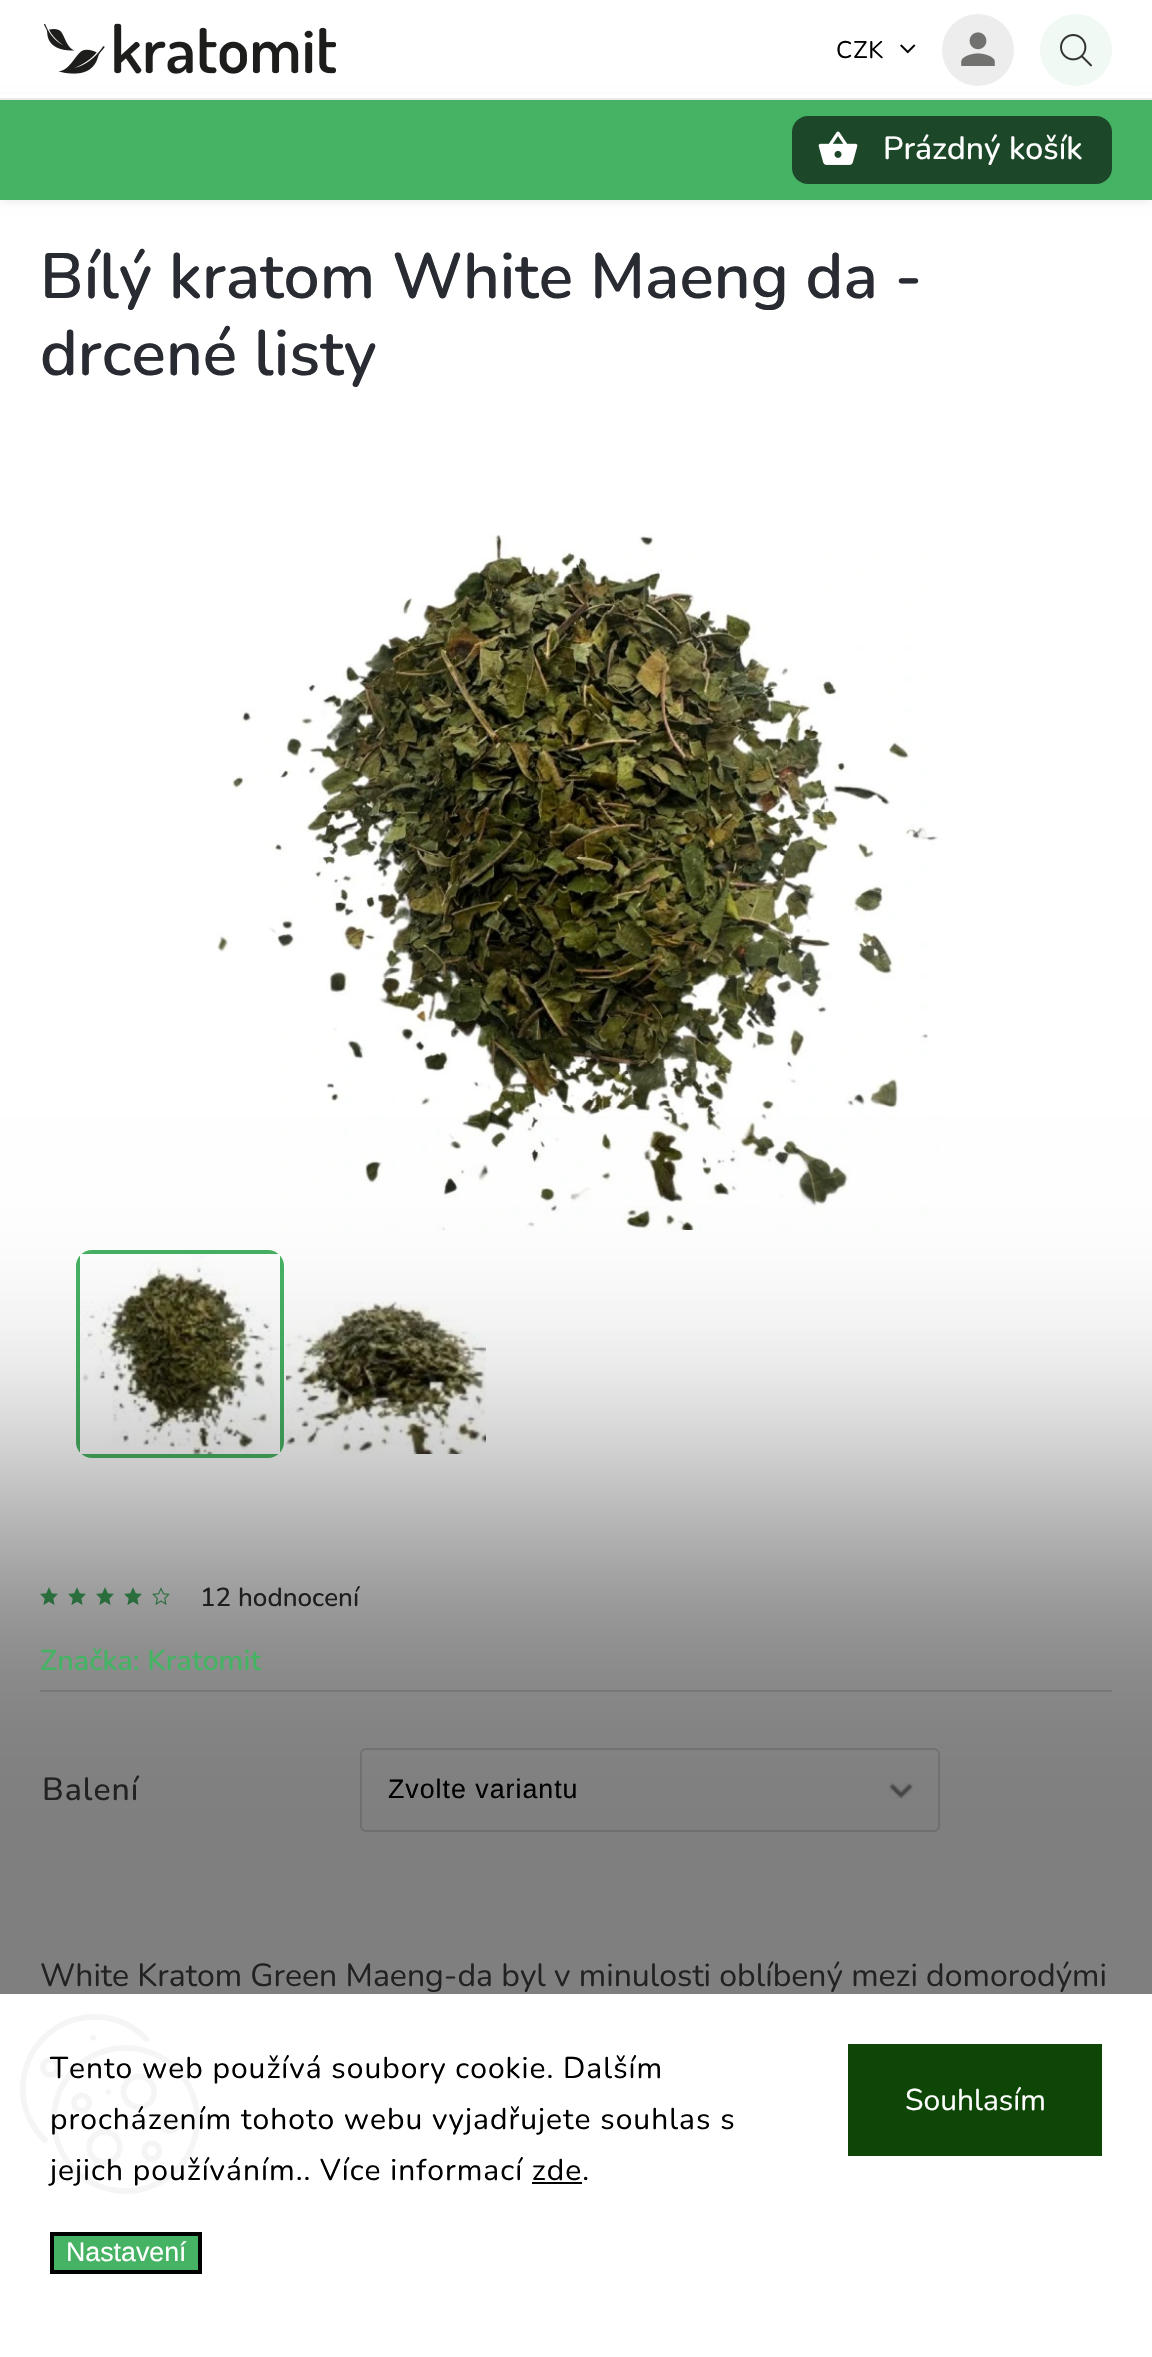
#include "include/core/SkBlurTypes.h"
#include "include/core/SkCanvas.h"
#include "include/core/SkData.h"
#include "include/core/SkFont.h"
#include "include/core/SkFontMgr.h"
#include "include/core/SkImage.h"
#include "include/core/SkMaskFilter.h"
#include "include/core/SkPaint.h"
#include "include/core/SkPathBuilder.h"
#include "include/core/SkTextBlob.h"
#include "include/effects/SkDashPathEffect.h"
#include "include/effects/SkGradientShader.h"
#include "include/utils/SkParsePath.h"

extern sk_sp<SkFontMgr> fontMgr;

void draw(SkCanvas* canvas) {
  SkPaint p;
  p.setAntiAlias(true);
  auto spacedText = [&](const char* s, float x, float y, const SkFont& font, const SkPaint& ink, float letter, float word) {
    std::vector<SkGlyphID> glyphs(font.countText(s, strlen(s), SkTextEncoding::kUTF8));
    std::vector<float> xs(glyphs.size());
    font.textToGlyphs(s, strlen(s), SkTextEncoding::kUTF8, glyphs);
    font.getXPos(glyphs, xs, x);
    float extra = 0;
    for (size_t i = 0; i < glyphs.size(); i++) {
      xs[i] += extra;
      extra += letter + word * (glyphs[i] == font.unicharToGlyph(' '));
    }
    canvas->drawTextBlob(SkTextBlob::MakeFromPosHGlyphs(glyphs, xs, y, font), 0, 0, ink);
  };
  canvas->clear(SK_ColorWHITE);
  p.setColor(SkColorSetARGB(26, 0, 0, 0));
  p.setMaskFilter(SkMaskFilter::MakeBlur(kNormal_SkBlurStyle, 5));
  canvas->drawRect(SkRect::MakeLTRB(0, 100, 1152, 200), p);
  p.setMaskFilter(nullptr);
  p.setColor(SK_ColorWHITE);
  canvas->drawRect(SkRect::MakeLTRB(0, 94, 1152, 98), p);
  p.setColor(SkColorSetRGB(234, 234, 234));
  canvas->drawRect(SkRect::MakeLTRB(0, 98, 1152, 100), p);
  canvas->drawImageRect(SkImages::DeferredFromEncodedData(SkData::MakeFromFileName("images/1.png")), SkRect::MakeLTRB(44, 23, 336, 74), SkSamplingOptions());
  canvas->drawImageRect(SkImages::DeferredFromEncodedData(SkData::MakeFromFileName("images/2.png")), SkRect::MakeLTRB(900, 44, 916, 54), SkSamplingOptions());
  p.setColor(SkColorSetRGB(237, 237, 237));
  canvas->drawCircle(978, 50, 36, p);
  canvas->drawImageRect(SkImages::DeferredFromEncodedData(SkData::MakeFromFileName("images/3.png")), SkRect::MakeLTRB(961, 32, 995, 66), SkSamplingOptions());
  p.setColor(SkColorSetRGB(240, 249, 243));
  canvas->drawCircle(1076, 50, 36, p);
  canvas->drawImageRect(SkImages::DeferredFromEncodedData(SkData::MakeFromFileName("images/4.png")), SkRect::MakeLTRB(1060, 34, 1092, 67), SkSamplingOptions());
  p.setColor(SkColorSetRGB(70, 178, 99));
  canvas->drawRect(SkRect::MakeLTRB(0, 100, 1152, 200), p);
  p.setColor(SkColorSetRGB(28, 71, 40));
  canvas->drawRoundRect(SkRect::MakeLTRB(792, 116, 1112, 184), 16, 16, p);
  canvas->drawImageRect(SkImages::DeferredFromEncodedData(SkData::MakeFromFileName("images/5.png")), SkRect::MakeLTRB(818, 131, 858, 165), SkSamplingOptions());
  canvas->drawImageRect(SkImages::DeferredFromEncodedData(SkData::MakeFromFileName("images/6.png")), SkRect::MakeLTRB(217, 534, 939, 1230), SkSamplingOptions());
  p.setStyle(SkPaint::kStroke_Style);
  p.setStrokeWidth(4);
  p.setColor(SkColorSetRGB(70, 178, 99));
  canvas->drawRoundRect(SkRect::MakeLTRB(78, 1252, 282, 1456), 14, 14, p);
  canvas->drawImageRect(SkImages::DeferredFromEncodedData(SkData::MakeFromFileName("images/7.png")), SkRect::MakeLTRB(80, 1254, 280, 1454), SkSamplingOptions());
  canvas->drawImageRect(SkImages::DeferredFromEncodedData(SkData::MakeFromFileName("images/8.png")), SkRect::MakeLTRB(286, 1301, 486, 1454), SkSamplingOptions());
  canvas->drawImageRect(SkImages::DeferredFromEncodedData(SkData::MakeFromFileName("images/9.png")), SkRect::MakeLTRB(40, 1587, 58, 1605), SkSamplingOptions());
  canvas->drawImageRect(SkImages::DeferredFromEncodedData(SkData::MakeFromFileName("images/9.png")), SkRect::MakeLTRB(68, 1587, 86, 1605), SkSamplingOptions());
  canvas->drawImageRect(SkImages::DeferredFromEncodedData(SkData::MakeFromFileName("images/9.png")), SkRect::MakeLTRB(96, 1587, 114, 1605), SkSamplingOptions());
  canvas->drawImageRect(SkImages::DeferredFromEncodedData(SkData::MakeFromFileName("images/9.png")), SkRect::MakeLTRB(124, 1587, 142, 1605), SkSamplingOptions());
  canvas->drawImageRect(SkImages::DeferredFromEncodedData(SkData::MakeFromFileName("images/10.png")), SkRect::MakeLTRB(152, 1587, 170, 1605), SkSamplingOptions());
  p.setStyle(SkPaint::kFill_Style);
  p.setColor(SkColorSetRGB(223, 223, 223));
  canvas->drawRect(SkRect::MakeLTRB(40, 1690, 1112, 1692), p);
  canvas->drawImageRect(SkImages::DeferredFromEncodedData(SkData::MakeFromFileName("images/11.png")), SkRect::MakeLTRB(889, 1783, 913, 1799), SkSamplingOptions());
  p.setStyle(SkPaint::kStroke_Style);
  p.setStrokeWidth(2);
  canvas->drawRoundRect(SkRect::MakeLTRB(361, 1749, 939, 1831), 5, 5, p);
  p.setStyle(SkPaint::kFill_Style);
  p.setColor(SkColorSetARGB(128, 0, 0, 0));
  p.setMaskFilter(SkMaskFilter::MakeBlur(kNormal_SkBlurStyle, 160));
  canvas->drawRect(SkRect::MakeLTRB(-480, 1498, 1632, 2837), p);
  p.setMaskFilter(nullptr);
  p.setColor(SK_ColorWHITE);
  canvas->drawRect(SkRect::MakeLTRB(0, 1994, 1152, 2357), p);
  canvas->drawImageRect(SkImages::DeferredFromEncodedData(SkData::MakeFromFileName("images/12.png")), SkRect::MakeLTRB(20, 2014, 200, 2194), SkSamplingOptions());
  p.setColor(SK_ColorBLACK);
  canvas->drawRect(SkRect::MakeLTRB(532, 2182, 582, 2184), p);
  p.setColor(SkColorSetRGB(70, 178, 99));
  canvas->drawRect(SkRect::MakeLTRB(52, 2234, 200, 2272), p);
  p.setStyle(SkPaint::kStroke_Style);
  p.setStrokeWidth(4);
  p.setColor(SK_ColorBLACK);
  canvas->drawRect(SkRect::MakeLTRB(52, 2234, 200, 2272), p);
  p.setStyle(SkPaint::kFill_Style);
  p.setColor(SkColorSetRGB(14, 70, 6));
  canvas->drawRect(SkRect::MakeLTRB(848, 2044, 1102, 2156), p);
  SkFont font1(fontMgr->matchFamilyStyle("Nunito", SkFontStyle::Normal()), 24);
  font1.setSubpixel(true);
  p.setColor(SK_ColorBLACK);
  spacedText("CZK", 836, 58, font1, p, 1, 0);
  SkFont font2(fontMgr->matchFamilyStyle("Nunito", SkFontStyle(500, SkFontStyle::kNormal_Width, SkFontStyle::kUpright_Slant)), 32);
  font2.setSubpixel(true);
  p.setColor(SK_ColorWHITE);
  canvas->drawString("Prázdný košík", 883, 159, font2, p);
  SkFont font3(fontMgr->matchFamilyStyle("Nunito", SkFontStyle(600, SkFontStyle::kNormal_Width, SkFontStyle::kUpright_Slant)), 64);
  font3.setSubpixel(true);
  p.setColor(SkColorSetRGB(41, 43, 50));
  canvas->drawString("Bílý kratom White Maeng da -", 40, 298, font3, p);
  canvas->drawString("drcené listy", 40, 375, font3, p);
  SkFont font4(fontMgr->matchFamilyStyle("Nunito", SkFontStyle::Normal()), 32);
  font4.setSubpixel(true);
  p.setColor(SkColorSetRGB(65, 63, 52));
  canvas->drawString(".", 623, 1074, font4, p);
  SkFont font5(fontMgr->matchFamilyStyle("Nunito", SkFontStyle(500, SkFontStyle::kNormal_Width, SkFontStyle::kUpright_Slant)), 26);
  font5.setSubpixel(true);
  p.setColor(SkColorSetRGB(30, 30, 28));
  canvas->drawString("12 hodnocení", 200, 1606, font5, p);
  SkFont font6(fontMgr->matchFamilyStyle("Nunito", SkFontStyle(600, SkFontStyle::kNormal_Width, SkFontStyle::kUpright_Slant)), 28.75f);
  font6.setSubpixel(true);
  p.setColor(SkColorSetRGB(70, 178, 99));
  canvas->drawString("Značka: Kratomit", 40, 1670, font6, p);
  p.setColor(SkColorSetRGB(34, 34, 34));
  spacedText("Balení", 42, 1800, font2, p, 1, 0);
  SkFont font7(fontMgr->matchFamilyStyle("Liberation Sans", SkFontStyle::Normal()), 26.75f);
  font7.setSubpixel(true);
  p.setColor(SK_ColorBLACK);
  spacedText("Zvolte variantu", 388, 1798, font7, p, 1, 0);
  p.setColor(SkColorSetRGB(34, 34, 34));
  canvas->drawString("White Kratom Green Maeng-da byl v minulosti oblíbený mezi domorodými", 40, 1986, font4, p);
  SkFont font8(fontMgr->matchFamilyStyle("Nunito", SkFontStyle::Normal()), 30);
  font8.setSubpixel(true);
  p.setColor(SK_ColorBLACK);
  spacedText("Tento web používá soubory cookie. Dalším", 50, 2078, font8, p, 1, 0);
  spacedText("procházením tohoto webu vyjadřujete souhlas s", 50, 2129, font8, p, 1, 0);
  spacedText("jejich používáním.. Více informací zde.", 50, 2180, font8, p, 1, 0);
  p.setColor(SK_ColorWHITE);
  canvas->drawString("Nastavení", 66, 2261, font7, p);
  canvas->drawString("Souhlasím", 905, 2110, font8, p);
}
